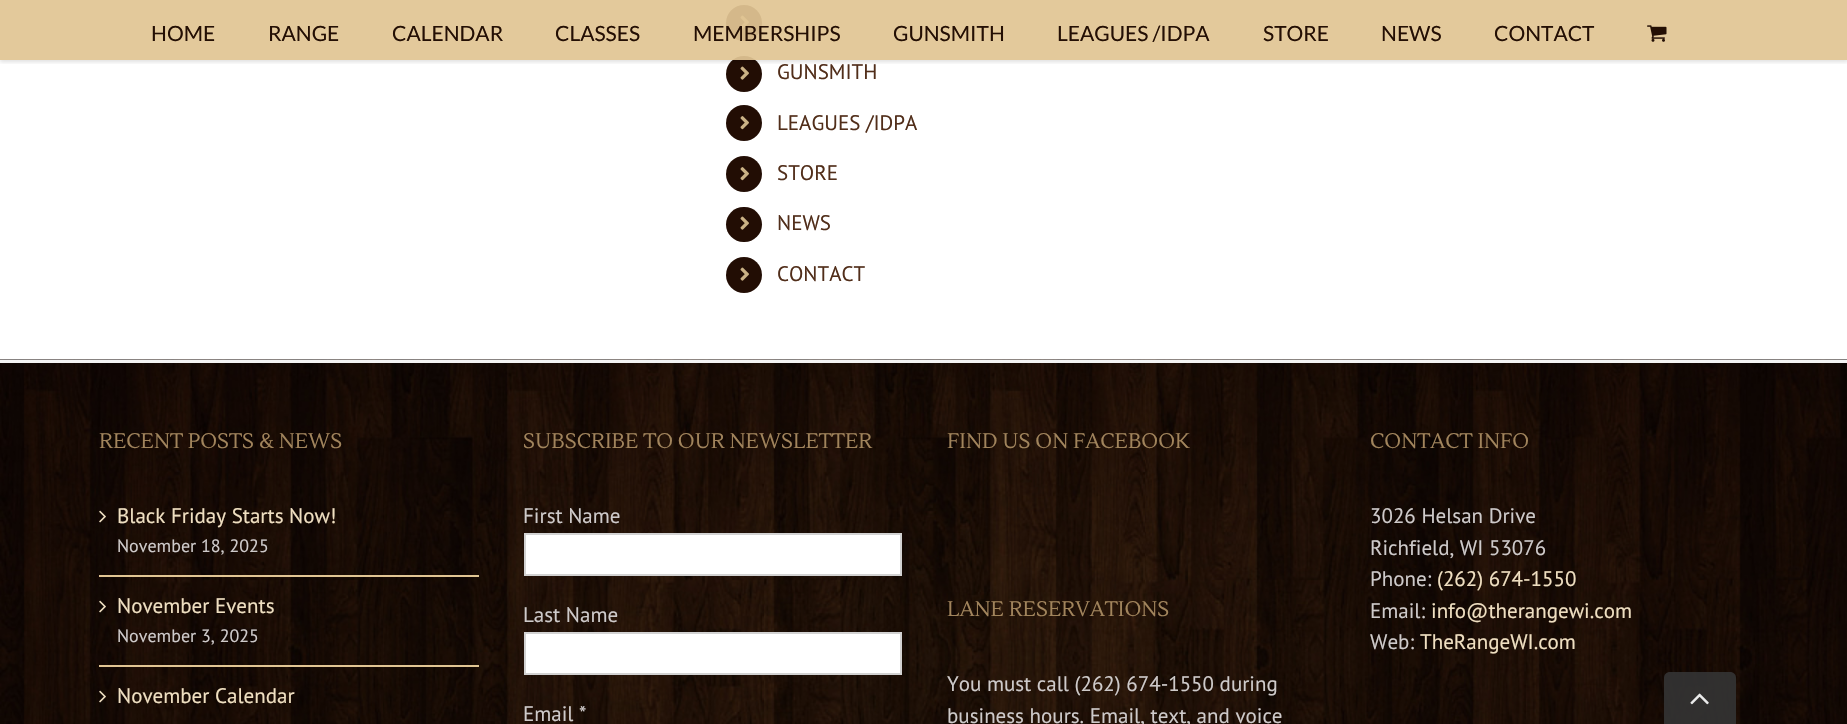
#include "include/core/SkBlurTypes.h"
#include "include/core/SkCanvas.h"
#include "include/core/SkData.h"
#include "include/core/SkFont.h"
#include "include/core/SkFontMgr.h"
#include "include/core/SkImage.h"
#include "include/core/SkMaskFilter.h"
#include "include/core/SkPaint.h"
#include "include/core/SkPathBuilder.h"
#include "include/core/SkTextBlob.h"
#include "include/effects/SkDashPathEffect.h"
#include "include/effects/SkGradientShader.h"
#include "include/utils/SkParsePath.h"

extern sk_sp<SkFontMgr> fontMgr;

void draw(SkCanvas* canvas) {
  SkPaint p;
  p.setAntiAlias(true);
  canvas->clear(SK_ColorWHITE);
  p.setColor(SkColorSetRGB(34, 13, 4));
  canvas->drawCircle(744, 23, 18, p);
  canvas->drawImageRect(SkImages::DeferredFromEncodedData(SkData::MakeFromFileName("images/2.png")), SkRect::MakeLTRB(740, 15, 749, 29), SkSamplingOptions());
  canvas->drawCircle(744, 74, 18, p);
  canvas->drawImageRect(SkImages::DeferredFromEncodedData(SkData::MakeFromFileName("images/2.png")), SkRect::MakeLTRB(740, 66, 749, 80), SkSamplingOptions());
  canvas->save();
  canvas->clipRect(SkRect::MakeLTRB(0, 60, 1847, 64));
  p.setColor(SkColorSetARGB(31, 0, 0, 0));
  p.setMaskFilter(SkMaskFilter::MakeBlur(kNormal_SkBlurStyle, 2));
  canvas->drawRect(SkRect::MakeLTRB(0, 2, 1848, 62), p);
  p.setMaskFilter(nullptr);
  canvas->restore();
  p.setColor(SkColorSetARGB(237, 225, 197, 147));
  canvas->drawRect(SkRect::MakeLTRB(0, 0, 1847, 60), p);
  canvas->drawImageRect(SkImages::DeferredFromEncodedData(SkData::MakeFromFileName("images/1.png")), SkRect::MakeLTRB(1647, 25, 1667, 42), SkSamplingOptions());
  p.setColor(SkColorSetRGB(34, 13, 4));
  canvas->drawCircle(744, 123, 18, p);
  canvas->drawImageRect(SkImages::DeferredFromEncodedData(SkData::MakeFromFileName("images/3.png")), SkRect::MakeLTRB(740, 116, 749, 130), SkSamplingOptions());
  canvas->drawCircle(744, 174, 18, p);
  canvas->drawImageRect(SkImages::DeferredFromEncodedData(SkData::MakeFromFileName("images/3.png")), SkRect::MakeLTRB(740, 167, 749, 181), SkSamplingOptions());
  canvas->drawRoundRect(SkRect::MakeLTRB(726, 207, 762, 242), 17.5f, 17.5f, p);
  canvas->drawImageRect(SkImages::DeferredFromEncodedData(SkData::MakeFromFileName("images/2.png")), SkRect::MakeLTRB(740, 216, 749, 230), SkSamplingOptions());
  canvas->drawCircle(744, 275, 18, p);
  canvas->drawImageRect(SkImages::DeferredFromEncodedData(SkData::MakeFromFileName("images/2.png")), SkRect::MakeLTRB(740, 267, 749, 281), SkSamplingOptions());
  canvas->drawImageRect(SkImages::DeferredFromEncodedData(SkData::MakeFromFileName("images/4.png")), SkRect::MakeLTRB(0, 359, 1847, 724), SkSamplingOptions());
  p.setColor(SkColorSetRGB(244, 244, 244));
  canvas->drawRect(SkRect::MakeLTRB(0, 360, 1847, 363), p);
  p.setColor(SkColorSetRGB(225, 197, 147));
  canvas->drawRect(SkRect::MakeLTRB(99, 575, 479, 577), p);
  canvas->drawImageRect(SkImages::DeferredFromEncodedData(SkData::MakeFromFileName("images/5.png")), SkRect::MakeLTRB(99, 510, 106, 523), SkSamplingOptions());
  canvas->drawRect(SkRect::MakeLTRB(99, 665, 479, 667), p);
  canvas->drawImageRect(SkImages::DeferredFromEncodedData(SkData::MakeFromFileName("images/6.png")), SkRect::MakeLTRB(99, 600, 106, 613), SkSamplingOptions());
  canvas->drawImageRect(SkImages::DeferredFromEncodedData(SkData::MakeFromFileName("images/7.png")), SkRect::MakeLTRB(99, 690, 106, 703), SkSamplingOptions());
  p.setColor(SK_ColorWHITE);
  canvas->drawRect(SkRect::MakeLTRB(525, 534, 901, 575), p);
  p.setStyle(SkPaint::kStroke_Style);
  p.setStrokeWidth(2);
  p.setColor(SkColorSetRGB(210, 210, 210));
  canvas->drawRect(SkRect::MakeLTRB(525, 534, 901, 575), p);
  p.setStyle(SkPaint::kFill_Style);
  p.setColor(SK_ColorWHITE);
  canvas->drawRect(SkRect::MakeLTRB(525, 633, 901, 674), p);
  p.setStyle(SkPaint::kStroke_Style);
  p.setColor(SkColorSetRGB(210, 210, 210));
  canvas->drawRect(SkRect::MakeLTRB(525, 633, 901, 674), p);
  p.setStyle(SkPaint::kFill_Style);
  p.setColor(SkColorSetARGB(230, 51, 51, 51));
  canvas->drawPath(SkPathBuilder().moveTo(1670, 672).lineTo(1730, 672).cubicTo(1733.5f, 672, 1736, 674.5f, 1736, 678).lineTo(1736, 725).lineTo(1664, 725).lineTo(1664, 678).cubicTo(1664, 674.5f, 1666.5f, 672, 1670, 672).close().detach(), p);
  canvas->drawImageRect(SkImages::DeferredFromEncodedData(SkData::MakeFromFileName("images/8.png")), SkRect::MakeLTRB(1690, 693, 1709, 705), SkSamplingOptions());
  SkFont font1(fontMgr->matchFamilyStyle("Lato", SkFontStyle::Normal()), 21);
  font1.setSubpixel(true);
  p.setColor(SkColorSetRGB(36, 15, 4));
  canvas->drawString("HOME", 151, 41, font1, p);
  canvas->drawString("RANGE", 268, 41, font1, p);
  canvas->drawString("CALENDAR", 392, 41, font1, p);
  canvas->drawString("CLASSES", 555, 41, font1, p);
  canvas->drawString("MEMBERSHIPS", 693, 41, font1, p);
  canvas->drawString("GUNSMITH", 893, 41, font1, p);
  canvas->drawString("LEAGUES /IDPA", 1057, 41, font1, p);
  canvas->drawString("STORE", 1263, 41, font1, p);
  canvas->drawString("NEWS", 1381, 41, font1, p);
  canvas->drawString("CONTACT", 1494, 41, font1, p);
  SkFont font2(fontMgr->matchFamilyStyle("PT Sans", SkFontStyle::Normal()), 21);
  font2.setSubpixel(true);
  p.setColor(SkColorSetRGB(81, 46, 26));
  canvas->drawString("GUNSMITH", 777, 79, font2, p);
  canvas->drawString("LEAGUES /IDPA", 777, 130, font2, p);
  canvas->drawString("STORE", 777, 180, font2, p);
  canvas->drawString("NEWS", 777, 230, font2, p);
  canvas->drawString("CONTACT", 777, 281, font2, p);
  SkFont font3(fontMgr->matchFamilyStyle("Lustria", SkFontStyle::Normal()), 21);
  font3.setSubpixel(true);
  p.setColor(SkColorSetRGB(161, 132, 92));
  canvas->drawString("RECENT POSTS & NEWS", 99, 448, font3, p);
  p.setColor(SkColorSetRGB(239, 223, 193));
  canvas->drawString("Black Friday Starts Now!", 117, 523, font2, p);
  SkFont font4(fontMgr->matchFamilyStyle("PT Sans", SkFontStyle::Normal()), 18);
  font4.setSubpixel(true);
  p.setColor(SkColorSetRGB(206, 202, 202));
  canvas->drawString("November 18, 2025", 117, 552, font4, p);
  p.setColor(SkColorSetRGB(239, 223, 193));
  canvas->drawString("November Events", 117, 613, font2, p);
  p.setColor(SkColorSetRGB(206, 202, 202));
  canvas->drawString("November 3, 2025", 117, 642, font4, p);
  p.setColor(SkColorSetRGB(239, 223, 193));
  canvas->drawString("November Calendar", 117, 703, font2, p);
  p.setColor(SkColorSetRGB(161, 132, 92));
  canvas->drawString("SUBSCRIBE TO OUR NEWSLETTER", 523, 448, font3, p);
  p.setColor(SkColorSetRGB(206, 202, 202));
  canvas->drawString("First Name", 523, 523, font2, p);
  canvas->drawString("Last Name", 523, 622, font2, p);
  canvas->drawString("Email *", 523, 721, font2, p);
  p.setColor(SkColorSetRGB(161, 132, 92));
  canvas->drawString("FIND US ON FACEBOOK", 947, 448, font3, p);
  canvas->drawString("LANE RESERVATIONS", 947, 616, font3, p);
  p.setColor(SkColorSetRGB(206, 202, 202));
  canvas->drawString("You must call (262) 674-1550 during", 947, 691, font2, p);
  canvas->drawString("business hours. Email, text, and voice", 947, 723, font2, p);
  p.setColor(SkColorSetRGB(161, 132, 92));
  canvas->drawString("CONTACT INFO", 1370, 448, font3, p);
  p.setColor(SkColorSetRGB(206, 202, 202));
  canvas->drawString("3026 Helsan Drive", 1370, 523, font2, p);
  canvas->drawString("Richfield, WI 53076", 1370, 555, font2, p);
  canvas->drawString("Phone:", 1370, 586, font2, p);
  p.setColor(SkColorSetRGB(239, 223, 193));
  canvas->drawString("(262) 674-1550", 1437, 586, font2, p);
  p.setColor(SkColorSetRGB(206, 202, 202));
  canvas->drawString("Email:", 1370, 618, font2, p);
  p.setColor(SkColorSetRGB(239, 223, 193));
  canvas->drawString("info@therangewi.com", 1431, 618, font2, p);
  p.setColor(SkColorSetRGB(206, 202, 202));
  canvas->drawString("Web:", 1370, 649, font2, p);
  p.setColor(SkColorSetRGB(239, 223, 193));
  canvas->drawString("TheRangeWI.com", 1420, 649, font2, p);
}
